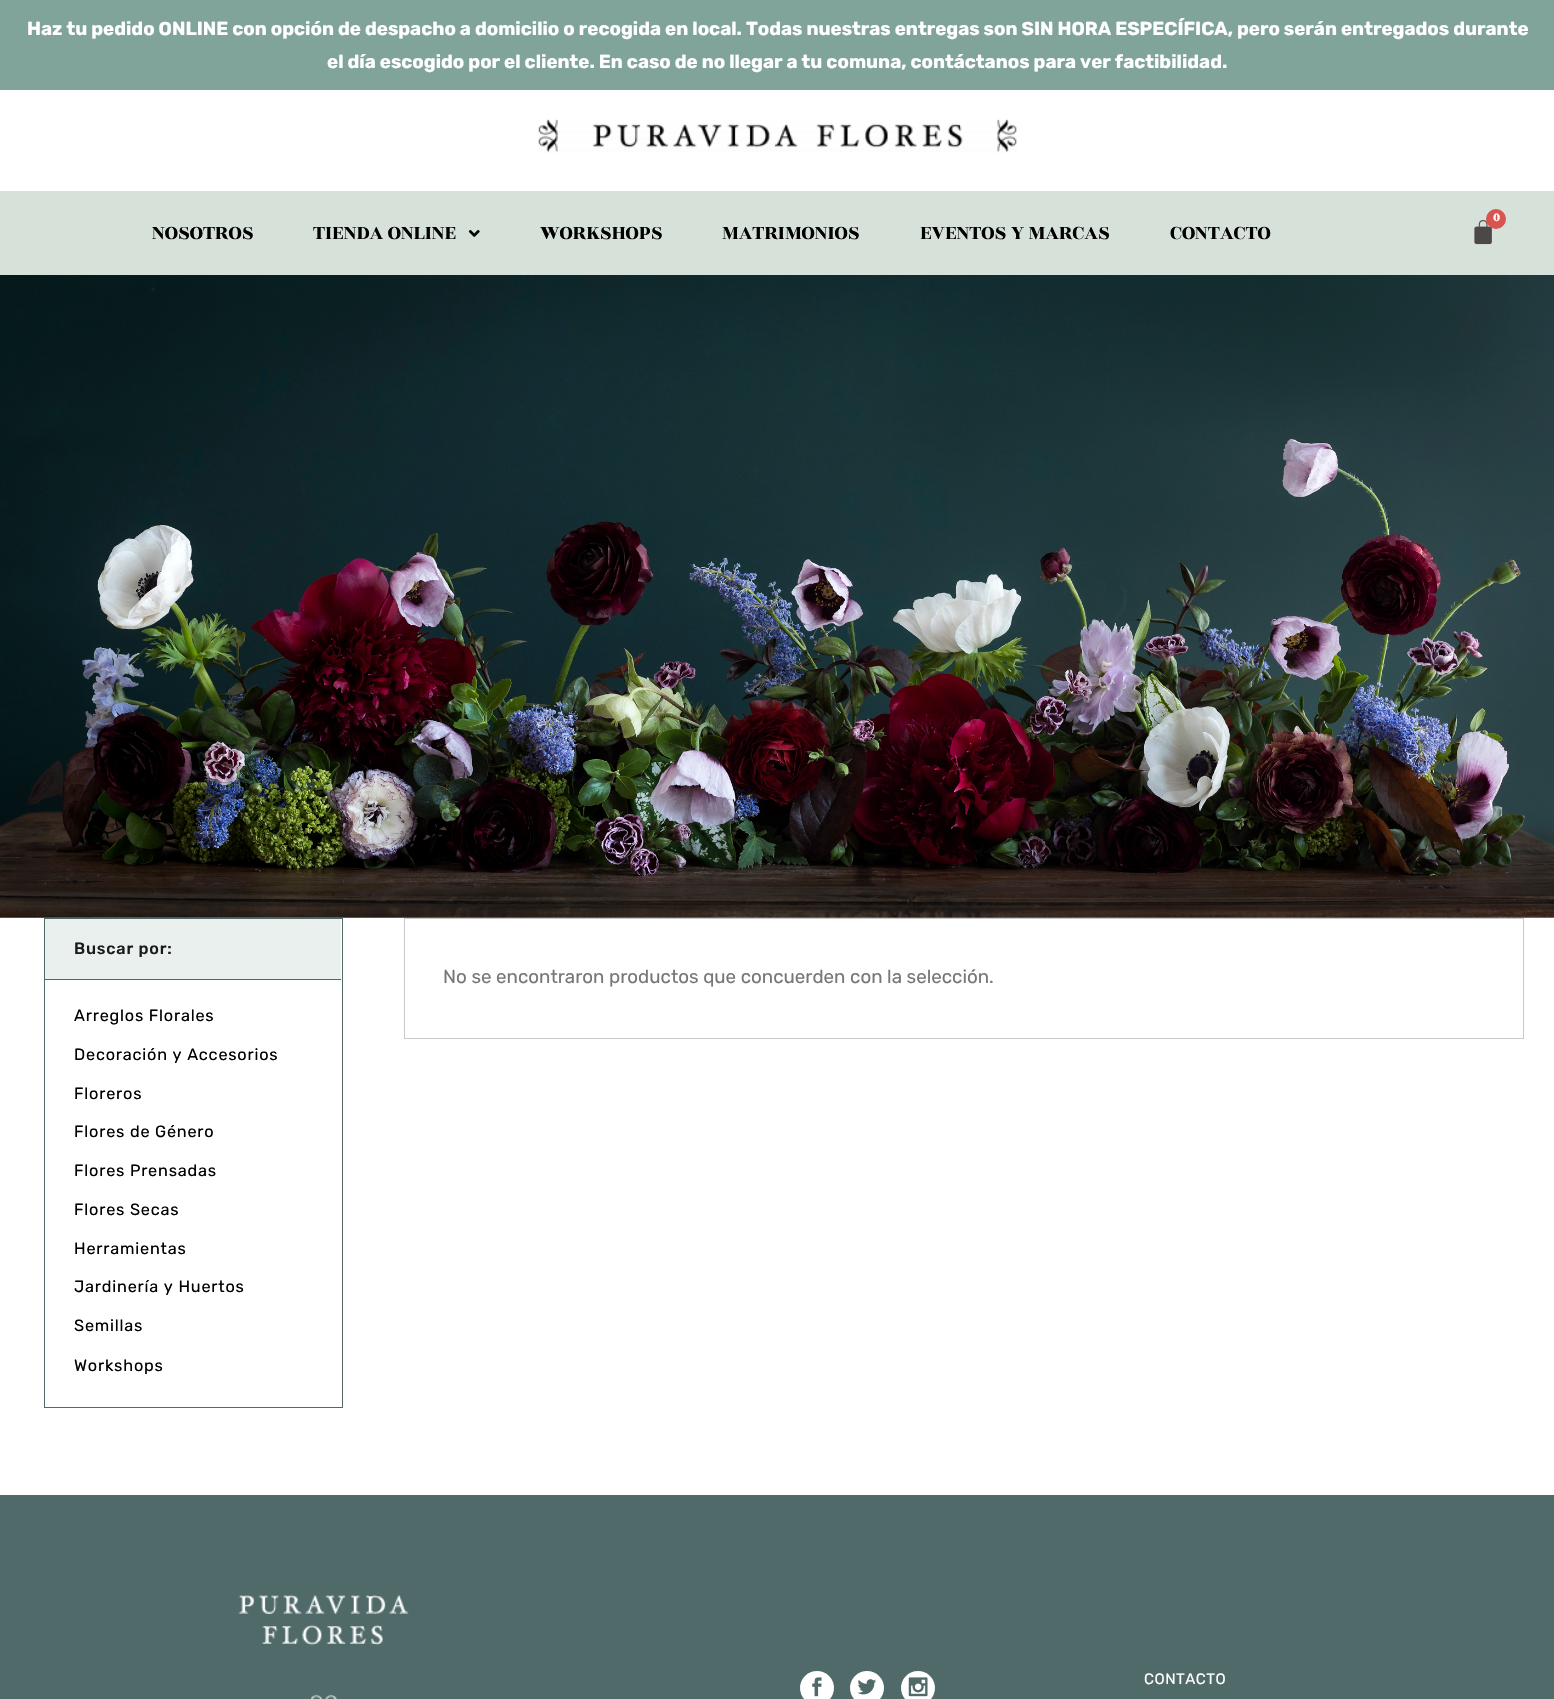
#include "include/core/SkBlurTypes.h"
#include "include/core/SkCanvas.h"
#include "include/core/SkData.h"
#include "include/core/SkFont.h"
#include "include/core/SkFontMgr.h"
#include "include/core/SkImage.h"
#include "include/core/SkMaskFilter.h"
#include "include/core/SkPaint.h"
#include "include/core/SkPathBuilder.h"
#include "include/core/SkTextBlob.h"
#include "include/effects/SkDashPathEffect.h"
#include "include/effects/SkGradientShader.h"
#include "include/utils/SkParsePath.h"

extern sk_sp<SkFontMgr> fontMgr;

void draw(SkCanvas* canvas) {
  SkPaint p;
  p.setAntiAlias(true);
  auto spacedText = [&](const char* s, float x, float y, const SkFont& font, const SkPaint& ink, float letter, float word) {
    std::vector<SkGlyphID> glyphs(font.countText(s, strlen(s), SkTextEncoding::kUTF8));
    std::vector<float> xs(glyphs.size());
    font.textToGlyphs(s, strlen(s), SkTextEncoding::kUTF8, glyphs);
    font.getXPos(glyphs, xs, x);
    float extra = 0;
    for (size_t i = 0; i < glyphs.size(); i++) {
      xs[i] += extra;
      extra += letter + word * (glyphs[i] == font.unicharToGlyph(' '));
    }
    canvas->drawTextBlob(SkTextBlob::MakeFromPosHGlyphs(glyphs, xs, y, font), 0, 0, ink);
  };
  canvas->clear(SK_ColorWHITE);
  p.setColor(SkColorSetRGB(128, 163, 154));
  canvas->drawRect(SkRect::MakeLTRB(0, 0, 1554, 90), p);
  canvas->drawImageRect(SkImages::DeferredFromEncodedData(SkData::MakeFromFileName("images/1.png")), SkRect::MakeLTRB(538, 119, 1017, 153), SkSamplingOptions());
  p.setColor(SkColorSetRGB(214, 225, 218));
  canvas->drawRect(SkRect::MakeLTRB(0, 191, 1554, 275), p);
  canvas->drawImageRect(SkImages::DeferredFromEncodedData(SkData::MakeFromFileName("images/2.png")), SkRect::MakeLTRB(1474, 220, 1492, 245), SkSamplingOptions());
  p.setColor(SkColorSetRGB(217, 83, 79));
  canvas->drawCircle(1496, 219, 10, p);
  canvas->drawImageRect(SkImages::DeferredFromEncodedData(SkData::MakeFromFileName("images/3.png")), SkRect::MakeLTRB(468, 230, 480, 237), SkSamplingOptions());
  canvas->drawImageRect(SkImages::DeferredFromEncodedData(SkData::MakeFromFileName("images/4.png")), SkRect::MakeLTRB(0, 275, 1554, 918), SkSamplingOptions());
  canvas->drawImageRect(SkImages::DeferredFromEncodedData(SkData::MakeFromFileName("images/5.png")), SkRect::MakeLTRB(0, 917, 1554, 918), SkSamplingOptions());
  p.setStyle(SkPaint::kStroke_Style);
  p.setStrokeWidth(1);
  p.setColor(SkColorSetRGB(80, 106, 105));
  canvas->drawRect(SkRect::MakeLTRB(44.5f, 918.5f, 342.5f, 1407.5f), p);
  p.setStyle(SkPaint::kFill_Style);
  p.setColor(SkColorSetRGB(234, 240, 237));
  canvas->drawRect(SkRect::MakeLTRB(45, 919, 341, 979), p);
  p.setColor(SkColorSetRGB(80, 106, 105));
  canvas->drawRect(SkRect::MakeLTRB(45, 979, 341, 980), p);
  p.setStyle(SkPaint::kStroke_Style);
  p.setColor(SkColorSetRGB(201, 201, 201));
  canvas->drawRect(SkRect::MakeLTRB(404.5f, 918.5f, 1523.5f, 1038.5f), p);
  p.setStyle(SkPaint::kFill_Style);
  p.setColor(SkColorSetRGB(80, 106, 105));
  canvas->drawRect(SkRect::MakeLTRB(0, 1495, 1554, 1699), p);
  canvas->drawImageRect(SkImages::DeferredFromEncodedData(SkData::MakeFromFileName("images/6.png")), SkRect::MakeLTRB(238, 1595, 409, 1699), SkSamplingOptions());
  p.setColor(SK_ColorWHITE);
  canvas->drawCircle(817, 1688, 17, p);
  canvas->drawImageRect(SkImages::DeferredFromEncodedData(SkData::MakeFromFileName("images/7.png")), SkRect::MakeLTRB(812, 1677, 822, 1697), SkSamplingOptions());
  canvas->drawCircle(867, 1688, 17, p);
  canvas->drawImageRect(SkImages::DeferredFromEncodedData(SkData::MakeFromFileName("images/8.png")), SkRect::MakeLTRB(857, 1679, 877, 1695), SkSamplingOptions());
  canvas->drawCircle(918, 1688, 17, p);
  canvas->drawImageRect(SkImages::DeferredFromEncodedData(SkData::MakeFromFileName("images/9.png")), SkRect::MakeLTRB(908, 1677, 928, 1697), SkSamplingOptions());
  SkFont font1(fontMgr->matchFamilyStyle("Rubik", SkFontStyle::Bold()), 18.75f);
  font1.setSubpixel(true);
  canvas->drawString("Haz tu pedido ONLINE con opción de despacho a domicilio o recogida en local. Todas nuestras entregas son SIN HORA ESPECÍFICA, pero serán entregados durante", 27, 35, font1, p);
  canvas->drawString("el día escogido por el cliente. En caso de no llegar a tu comuna, contáctanos para ver factibilidad.", 327, 68, font1, p);
  SkFont font2(fontMgr->matchFamilyStyle("Rozha One", SkFontStyle::Bold()), 12);
  font2.setSubpixel(true);
  canvas->drawString("0", 1493, 221, font2, p);
  SkFont font3(fontMgr->matchFamilyStyle("Rozha One", SkFontStyle::Normal()), 21.25f);
  font3.setSubpixel(true);
  p.setColor(SK_ColorBLACK);
  canvas->drawString("NOSOTROS", 152, 239, font3, p);
  canvas->drawString("TIENDA ONLINE", 313, 239, font3, p);
  canvas->drawString("WORKSHOPS", 540, 239, font3, p);
  canvas->drawString("MATRIMONIOS", 722, 239, font3, p);
  canvas->drawString("EVENTOS Y MARCAS", 920, 239, font3, p);
  canvas->drawString("CONTACTO", 1170, 239, font3, p);
  SkFont font4(fontMgr->matchFamilyStyle("Rubik", SkFontStyle(500, SkFontStyle::kNormal_Width, SkFontStyle::kUpright_Slant)), 16.25f);
  font4.setSubpixel(true);
  p.setColor(SkColorSetRGB(27, 27, 27));
  spacedText("Buscar por:", 74, 954, font4, p, 0.8f, 0);
  SkFont font5(fontMgr->matchFamilyStyle("Rubik", SkFontStyle::Normal()), 16.25f);
  font5.setSubpixel(true);
  p.setColor(SK_ColorBLACK);
  spacedText("Arreglos Florales", 74, 1021, font5, p, 0.8f, 0);
  spacedText("Decoración y Accesorios", 74, 1060, font5, p, 0.8f, 0);
  spacedText("Floreros", 74, 1099, font5, p, 0.8f, 0);
  spacedText("Flores de Género", 74, 1137, font5, p, 0.8f, 0);
  spacedText("Flores Prensadas", 74, 1176, font5, p, 0.8f, 0);
  spacedText("Flores Secas", 74, 1215, font5, p, 0.8f, 0);
  spacedText("Herramientas", 74, 1254, font5, p, 0.8f, 0);
  spacedText("Jardinería y Huertos", 74, 1292, font5, p, 0.8f, 0);
  spacedText("Semillas", 74, 1331, font5, p, 0.8f, 0);
  spacedText("Workshops", 74, 1371, font5, p, 0.8f, 0);
  SkFont font6(fontMgr->matchFamilyStyle("Rubik", SkFontStyle::Normal()), 18.75f);
  font6.setSubpixel(true);
  p.setColor(SkColorSetRGB(119, 119, 119));
  canvas->drawString("No se encontraron productos que concuerden con la selección.", 443, 983, font6, p);
  SkFont font7(fontMgr->matchFamilyStyle("Rubik", SkFontStyle::Normal()), 15);
  font7.setSubpixel(true);
  p.setColor(SK_ColorWHITE);
  spacedText("CONTACTO", 1144, 1684, font7, p, 0.5f, 0);
}
